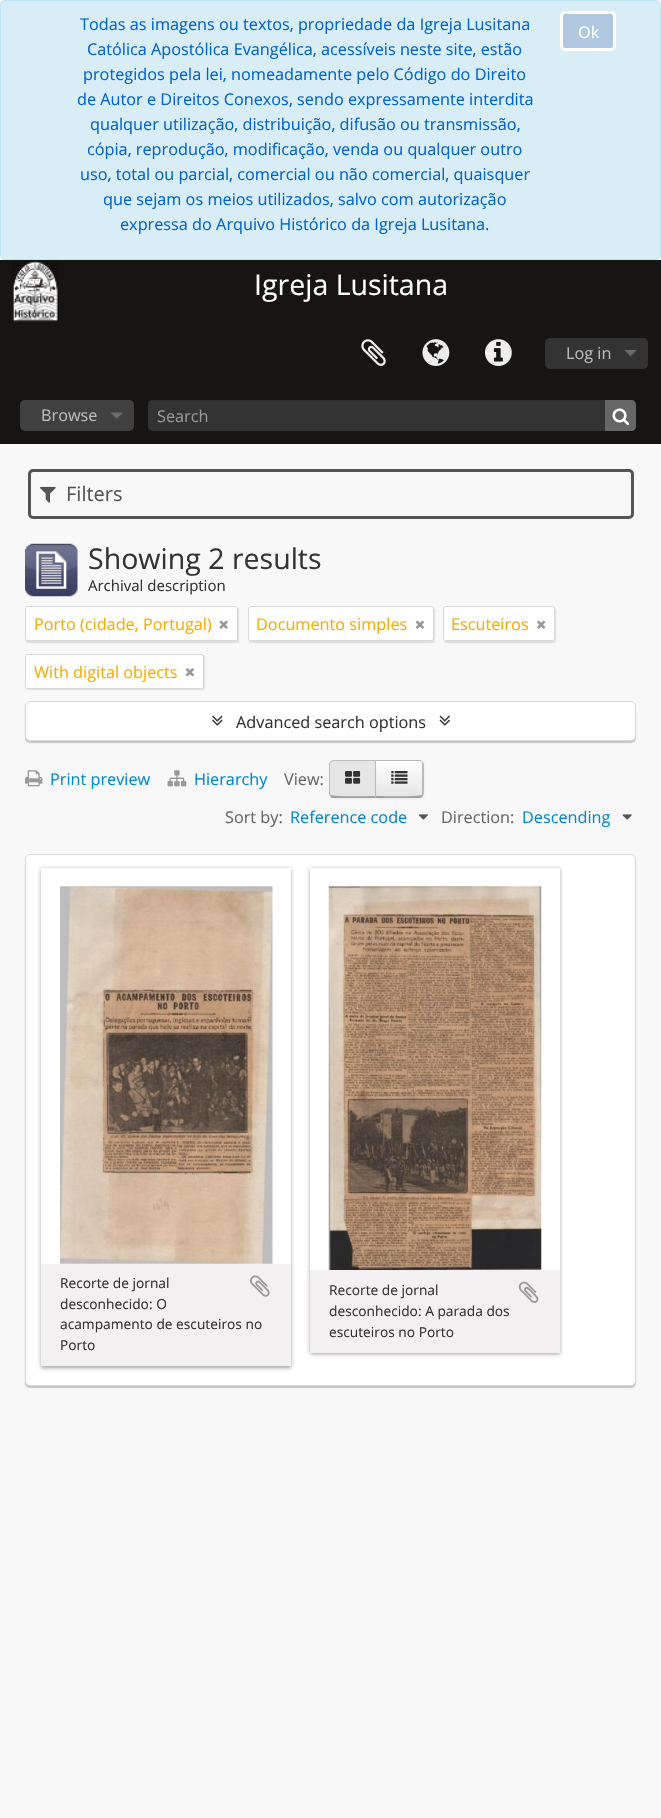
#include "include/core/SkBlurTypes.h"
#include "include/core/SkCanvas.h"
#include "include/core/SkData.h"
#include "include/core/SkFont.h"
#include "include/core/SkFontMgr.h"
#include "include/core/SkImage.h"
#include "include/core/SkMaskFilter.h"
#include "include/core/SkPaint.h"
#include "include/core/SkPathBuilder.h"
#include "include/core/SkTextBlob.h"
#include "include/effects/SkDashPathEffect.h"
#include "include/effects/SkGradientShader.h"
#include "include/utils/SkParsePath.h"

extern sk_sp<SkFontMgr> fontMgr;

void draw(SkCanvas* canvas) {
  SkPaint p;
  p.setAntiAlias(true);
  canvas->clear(SkColorSetRGB(248, 248, 248));
  p.setColor(SkColorSetRGB(217, 237, 247));
  canvas->drawRoundRect(SkRect::MakeLTRB(0.5f, 0.5f, 660.5f, 259.5f), 4.5f, 4.5f, p);
  p.setStyle(SkPaint::kStroke_Style);
  p.setStrokeWidth(1);
  p.setColor(SkColorSetRGB(188, 232, 241));
  canvas->drawRoundRect(SkRect::MakeLTRB(0.5f, 0.5f, 660.5f, 259.5f), 4.5f, 4.5f, p);
  p.setStyle(SkPaint::kFill_Style);
  p.setColor(SkColorSetRGB(175, 200, 223));
  canvas->drawRoundRect(SkRect::MakeLTRB(561.5f, 12.5f, 614.5f, 49.5f), 3.5f, 3.5f, p);
  p.setStyle(SkPaint::kStroke_Style);
  p.setStrokeWidth(3);
  p.setColor(SK_ColorWHITE);
  canvas->drawRoundRect(SkRect::MakeLTRB(561.5f, 12.5f, 614.5f, 49.5f), 3.5f, 3.5f, p);
  p.setStyle(SkPaint::kFill_Style);
  p.setColor(SkColorSetRGB(22, 21, 20));
  canvas->drawRect(SkRect::MakeLTRB(0, 260, 661, 444), p);
  canvas->drawImageRect(SkImages::DeferredFromEncodedData(SkData::MakeFromFileName("images/1.png")), SkRect::MakeLTRB(12, 261, 59, 322), SkSamplingOptions());
  canvas->drawImageRect(SkImages::DeferredFromEncodedData(SkData::MakeFromFileName("images/2.png")), SkRect::MakeLTRB(361, 339, 386, 366), SkSamplingOptions());
  canvas->drawImageRect(SkImages::DeferredFromEncodedData(SkData::MakeFromFileName("images/3.png")), SkRect::MakeLTRB(422, 339, 450, 366), SkSamplingOptions());
  canvas->drawImageRect(SkImages::DeferredFromEncodedData(SkData::MakeFromFileName("images/4.png")), SkRect::MakeLTRB(485, 339, 512, 366), SkSamplingOptions());
  p.setColor(SkColorSetRGB(51, 51, 51));
  canvas->drawRoundRect(SkRect::MakeLTRB(545, 338, 648, 369), 5, 5, p);
  canvas->drawImageRect(SkImages::DeferredFromEncodedData(SkData::MakeFromFileName("images/5.png")), SkRect::MakeLTRB(625, 350, 637, 357), SkSamplingOptions());
  p.setColor(SkColorSetRGB(64, 64, 64));
  canvas->drawRoundRect(SkRect::MakeLTRB(20, 400, 134, 431), 5, 5, p);
  canvas->drawImageRect(SkImages::DeferredFromEncodedData(SkData::MakeFromFileName("images/6.png")), SkRect::MakeLTRB(111, 412, 123, 419), SkSamplingOptions());
  p.setColor(SkColorSetRGB(51, 51, 51));
  canvas->drawRoundRect(SkRect::MakeLTRB(148, 400, 636, 431), 5, 5, p);
  p.setColor(SkColorSetARGB(18, 0, 0, 0));
  canvas->drawPath(SkPathBuilder().moveTo(152, 401).lineTo(631, 401).cubicTo(634, 401, 636, 403, 636, 406).lineTo(636, 405).cubicTo(636, 402, 634, 400, 631, 400).lineTo(153, 400).cubicTo(150, 400, 148, 402, 148, 405).lineTo(148, 406).cubicTo(148, 403, 150, 401, 152, 401).close().detach(), p);
  p.setColor(SkColorSetRGB(102, 102, 102));
  canvas->drawPath(SkPathBuilder().moveTo(605, 400).lineTo(631, 400).cubicTo(634, 400, 636, 402, 636, 405).lineTo(636, 426).cubicTo(636, 429, 634, 431, 631, 431).lineTo(605, 431).close().detach(), p);
  canvas->drawImageRect(SkImages::DeferredFromEncodedData(SkData::MakeFromFileName("images/7.png")), SkRect::MakeLTRB(612, 408, 630, 425), SkSamplingOptions());
  p.setStyle(SkPaint::kStroke_Style);
  p.setColor(SkColorSetRGB(85, 85, 85));
  canvas->drawRoundRect(SkRect::MakeLTRB(29.5f, 470.5f, 632.5f, 517.5f), 3.5f, 3.5f, p);
  canvas->drawImageRect(SkImages::DeferredFromEncodedData(SkData::MakeFromFileName("images/8.png")), SkRect::MakeLTRB(40, 486, 56, 503), SkSamplingOptions());
  canvas->drawImageRect(SkImages::DeferredFromEncodedData(SkData::MakeFromFileName("images/9.png")), SkRect::MakeLTRB(25, 543, 78, 597), SkSamplingOptions());
  p.setStyle(SkPaint::kFill_Style);
  p.setColor(SkColorSetARGB(26, 0, 0, 0));
  p.setMaskFilter(SkMaskFilter::MakeBlur(kNormal_SkBlurStyle, 0.5f));
  canvas->drawRoundRect(SkRect::MakeLTRB(26, 608, 239, 643), 2.5f, 2.5f, p);
  p.setMaskFilter(nullptr);
  p.setColor(SK_ColorWHITE);
  canvas->drawRoundRect(SkRect::MakeLTRB(25.5f, 606.5f, 237.5f, 640.5f), 2, 2, p);
  p.setStyle(SkPaint::kStroke_Style);
  p.setStrokeWidth(1);
  p.setColor(SkColorSetRGB(217, 217, 217));
  canvas->drawRoundRect(SkRect::MakeLTRB(25.5f, 606.5f, 237.5f, 640.5f), 2, 2, p);
  canvas->drawImageRect(SkImages::DeferredFromEncodedData(SkData::MakeFromFileName("images/10.png")), SkRect::MakeLTRB(219, 620, 228, 629), SkSamplingOptions());
  p.setStyle(SkPaint::kFill_Style);
  p.setColor(SkColorSetARGB(26, 0, 0, 0));
  p.setMaskFilter(SkMaskFilter::MakeBlur(kNormal_SkBlurStyle, 0.5f));
  canvas->drawRoundRect(SkRect::MakeLTRB(249, 608, 435, 643), 2.5f, 2.5f, p);
  p.setMaskFilter(nullptr);
  p.setColor(SK_ColorWHITE);
  canvas->drawRoundRect(SkRect::MakeLTRB(248.5f, 606.5f, 433.5f, 640.5f), 2, 2, p);
  p.setStyle(SkPaint::kStroke_Style);
  p.setColor(SkColorSetRGB(217, 217, 217));
  canvas->drawRoundRect(SkRect::MakeLTRB(248.5f, 606.5f, 433.5f, 640.5f), 2, 2, p);
  canvas->drawImageRect(SkImages::DeferredFromEncodedData(SkData::MakeFromFileName("images/11.png")), SkRect::MakeLTRB(415, 620, 424, 629), SkSamplingOptions());
  p.setStyle(SkPaint::kFill_Style);
  p.setColor(SkColorSetARGB(26, 0, 0, 0));
  p.setMaskFilter(SkMaskFilter::MakeBlur(kNormal_SkBlurStyle, 0.5f));
  canvas->drawRoundRect(SkRect::MakeLTRB(444, 608, 556, 643), 2.5f, 2.5f, p);
  p.setMaskFilter(nullptr);
  p.setColor(SK_ColorWHITE);
  canvas->drawRoundRect(SkRect::MakeLTRB(443.5f, 606.5f, 554.5f, 640.5f), 2, 2, p);
  p.setStyle(SkPaint::kStroke_Style);
  p.setColor(SkColorSetRGB(217, 217, 217));
  canvas->drawRoundRect(SkRect::MakeLTRB(443.5f, 606.5f, 554.5f, 640.5f), 2, 2, p);
  canvas->drawImageRect(SkImages::DeferredFromEncodedData(SkData::MakeFromFileName("images/12.png")), SkRect::MakeLTRB(537, 620, 546, 629), SkSamplingOptions());
  p.setStyle(SkPaint::kFill_Style);
  p.setColor(SkColorSetARGB(26, 0, 0, 0));
  p.setMaskFilter(SkMaskFilter::MakeBlur(kNormal_SkBlurStyle, 0.5f));
  canvas->drawRoundRect(SkRect::MakeLTRB(26, 655, 205, 690), 2.5f, 2.5f, p);
  p.setMaskFilter(nullptr);
  p.setColor(SK_ColorWHITE);
  canvas->drawRoundRect(SkRect::MakeLTRB(25.5f, 654.5f, 203.5f, 688.5f), 2, 2, p);
  p.setStyle(SkPaint::kStroke_Style);
  p.setColor(SkColorSetRGB(217, 217, 217));
  canvas->drawRoundRect(SkRect::MakeLTRB(25.5f, 654.5f, 203.5f, 688.5f), 2, 2, p);
  canvas->drawImageRect(SkImages::DeferredFromEncodedData(SkData::MakeFromFileName("images/13.png")), SkRect::MakeLTRB(185, 668, 194, 677), SkSamplingOptions());
  p.setStyle(SkPaint::kFill_Style);
  p.setColor(SkColorSetARGB(51, 0, 0, 0));
  p.setMaskFilter(SkMaskFilter::MakeBlur(kNormal_SkBlurStyle, 0.5f));
  canvas->drawRoundRect(SkRect::MakeLTRB(25, 703, 636, 743), 5, 5, p);
  p.setMaskFilter(nullptr);
  p.setColor(SK_ColorWHITE);
  canvas->drawRoundRect(SkRect::MakeLTRB(25.5f, 701.5f, 635.5f, 740.5f), 4.5f, 4.5f, p);
  p.setStyle(SkPaint::kStroke_Style);
  p.setColor(SkColorSetRGB(217, 217, 217));
  canvas->drawRoundRect(SkRect::MakeLTRB(25.5f, 701.5f, 635.5f, 740.5f), 4.5f, 4.5f, p);
  canvas->drawImageRect(SkImages::DeferredFromEncodedData(SkData::MakeFromFileName("images/14.png")), SkRect::MakeLTRB(212, 715, 223, 726), SkSamplingOptions());
  canvas->drawImageRect(SkImages::DeferredFromEncodedData(SkData::MakeFromFileName("images/15.png")), SkRect::MakeLTRB(439, 715, 450, 726), SkSamplingOptions());
  canvas->drawImageRect(SkImages::DeferredFromEncodedData(SkData::MakeFromFileName("images/16.png")), SkRect::MakeLTRB(25, 770, 43, 787), SkSamplingOptions());
  canvas->drawImageRect(SkImages::DeferredFromEncodedData(SkData::MakeFromFileName("images/17.png")), SkRect::MakeLTRB(167, 770, 187, 787), SkSamplingOptions());
  p.setStyle(SkPaint::kFill_Style);
  p.setColor(SkColorSetARGB(13, 0, 0, 0));
  p.setMaskFilter(SkMaskFilter::MakeBlur(kNormal_SkBlurStyle, 1));
  canvas->drawRoundRect(SkRect::MakeLTRB(375, 761, 424, 799), 5, 5, p);
  p.setMaskFilter(nullptr);
  canvas->save();
  canvas->clipPath(SkPathBuilder().moveTo(375, 760).lineTo(419, 760).cubicTo(422, 760, 424, 762, 424, 765).lineTo(424, 793).cubicTo(424, 796, 422, 798, 419, 798).lineTo(375, 798).close().detach(), true);
  {
    const SkColor colors[] = {SK_ColorWHITE, SkColorSetRGB(230, 230, 230)};
    const float stops[] = {0, 1};
    const SkPoint ends[] = {{399, 761}, {399, 796}};
    p.setShader(SkGradientShader::MakeLinear(ends, colors, stops, 2, SkTileMode::kClamp));
    p.setAlpha(255);
  }
  canvas->drawRect(SkRect::MakeLTRB(376, 761, 424, 796), p);
  canvas->restore();
  p.setShader(nullptr);
  p.setColor(SkColorSetARGB(51, 255, 255, 255));
  canvas->drawPath(SkPathBuilder().moveTo(376, 762).lineTo(412, 762).cubicTo(425, 762, 422, 762, 422, 775).lineTo(422, 795).cubicTo(423, 794, 423, 793, 423, 792).lineTo(423, 765).cubicTo(423, 763, 421, 761, 419, 761).lineTo(376, 761).close().detach(), p);
  p.setColor(SkColorSetRGB(187, 187, 187));
  canvas->drawPath(SkPathBuilder().moveTo(375, 760).lineTo(376, 761).lineTo(420, 761).lineTo(421, 762).lineTo(422, 761).cubicTo(422, 760, 420, 760, 419, 760).close().detach(), p);
  canvas->drawPath(SkPathBuilder().moveTo(424, 794).lineTo(422.5f, 796.5f).lineTo(421.5f, 795).cubicTo(422, 794.5f, 422, 793.5f, 422, 792).lineTo(422, 765).cubicTo(422, 764, 422, 763, 421.5f, 762.5f).lineTo(422.5f, 761.5f).lineTo(424, 763.5f).close().detach(), p);
  p.setColor(SkColorSetRGB(162, 162, 162));
  canvas->drawPath(SkPathBuilder().moveTo(421, 798).lineTo(375, 798).lineTo(376, 796).cubicTo(382, 796, 420, 797, 421, 795).lineTo(423, 796).close().detach(), p);
  p.setColor(SkColorSetARGB(13, 0, 0, 0));
  p.setMaskFilter(SkMaskFilter::MakeBlur(kNormal_SkBlurStyle, 1));
  canvas->drawRoundRect(SkRect::MakeLTRB(329, 761, 376, 799), 5, 5, p);
  p.setMaskFilter(nullptr);
  p.setColor(SkColorSetRGB(230, 230, 230));
  canvas->drawPath(SkPathBuilder().moveTo(334, 760).lineTo(376, 760).lineTo(376, 798).lineTo(334, 798).cubicTo(331, 798, 329, 796, 329, 793).lineTo(329, 765).cubicTo(329, 762, 331, 760, 334, 760).close().detach(), p);
  p.setColor(SkColorSetRGB(187, 187, 187));
  canvas->drawPath(SkPathBuilder().moveTo(334, 760).cubicTo(332, 760, 331, 761, 330, 762).lineTo(331, 762).cubicTo(332, 762, 333, 761, 334, 761).lineTo(375, 761).lineTo(376, 760).close().detach(), p);
  canvas->drawPath(SkPathBuilder().moveTo(376, 760).lineTo(376, 797).lineTo(375, 796).lineTo(375, 761).close().detach(), p);
  p.setColor(SkColorSetRGB(162, 162, 162));
  canvas->drawPath(SkPathBuilder().moveTo(332, 798).lineTo(330, 796).lineTo(331, 795).cubicTo(334, 797, 369, 796, 375, 796).lineTo(376, 798).close().detach(), p);
  p.setColor(SkColorSetRGB(187, 187, 187));
  canvas->drawPath(SkPathBuilder().moveTo(330.5f, 761.5f).cubicTo(329.5f, 762.5f, 329, 763.5f, 329, 765).lineTo(329, 792).cubicTo(329, 793.5f, 329.5f, 795, 330.5f, 796).lineTo(331, 795).cubicTo(330.5f, 794.5f, 330, 793.5f, 330, 792).lineTo(330, 765).cubicTo(330, 764, 330.5f, 763, 331, 762.5f).close().detach(), p);
  canvas->drawImageRect(SkImages::DeferredFromEncodedData(SkData::MakeFromFileName("images/18.png")), SkRect::MakeLTRB(345, 771, 361, 784), SkSamplingOptions());
  canvas->drawImageRect(SkImages::DeferredFromEncodedData(SkData::MakeFromFileName("images/19.png")), SkRect::MakeLTRB(391, 771, 408, 784), SkSamplingOptions());
  canvas->drawImageRect(SkImages::DeferredFromEncodedData(SkData::MakeFromFileName("images/20.png")), SkRect::MakeLTRB(418, 814, 428, 820), SkSamplingOptions());
  canvas->drawImageRect(SkImages::DeferredFromEncodedData(SkData::MakeFromFileName("images/21.png")), SkRect::MakeLTRB(622, 814, 632, 820), SkSamplingOptions());
  p.setColor(SkColorSetARGB(51, 0, 0, 0));
  p.setMaskFilter(SkMaskFilter::MakeBlur(kNormal_SkBlurStyle, 0.5f));
  canvas->drawRoundRect(SkRect::MakeLTRB(25, 855, 636, 1388), 5, 5, p);
  p.setMaskFilter(nullptr);
  p.setColor(SK_ColorWHITE);
  canvas->drawRoundRect(SkRect::MakeLTRB(25.5f, 854.5f, 635.5f, 1385.5f), 4.5f, 4.5f, p);
  p.setStyle(SkPaint::kStroke_Style);
  p.setColor(SkColorSetRGB(217, 217, 217));
  canvas->drawRoundRect(SkRect::MakeLTRB(25.5f, 854.5f, 635.5f, 1385.5f), 4.5f, 4.5f, p);
  p.setStyle(SkPaint::kFill_Style);
  p.setColor(SkColorSetARGB(102, 25, 25, 25));
  p.setMaskFilter(SkMaskFilter::MakeBlur(kNormal_SkBlurStyle, 2));
  canvas->drawRect(SkRect::MakeLTRB(41, 869, 291, 1368), p);
  p.setMaskFilter(nullptr);
  p.setColor(SK_ColorWHITE);
  canvas->drawRect(SkRect::MakeLTRB(41, 868, 291, 1264), p);
  canvas->drawImageRect(SkImages::DeferredFromEncodedData(SkData::MakeFromFileName("images/22.png")), SkRect::MakeLTRB(60, 886, 273, 1264), SkSamplingOptions());
  p.setColor(SkColorSetRGB(242, 240, 240));
  canvas->drawRect(SkRect::MakeLTRB(41, 1264, 291, 1366), p);
  canvas->drawImageRect(SkImages::DeferredFromEncodedData(SkData::MakeFromFileName("images/23.png")), SkRect::MakeLTRB(250, 1275, 270, 1297), SkSamplingOptions());
  p.setColor(SkColorSetARGB(102, 25, 25, 25));
  p.setMaskFilter(SkMaskFilter::MakeBlur(kNormal_SkBlurStyle, 2));
  canvas->drawRect(SkRect::MakeLTRB(310, 869, 560, 1354), p);
  p.setMaskFilter(nullptr);
  p.setColor(SK_ColorWHITE);
  canvas->drawRect(SkRect::MakeLTRB(310, 868, 560, 1270), p);
  canvas->drawImageRect(SkImages::DeferredFromEncodedData(SkData::MakeFromFileName("images/24.png")), SkRect::MakeLTRB(328, 886, 542, 1270), SkSamplingOptions());
  p.setColor(SkColorSetRGB(242, 240, 240));
  canvas->drawRect(SkRect::MakeLTRB(310, 1270, 560, 1353), p);
  canvas->drawImageRect(SkImages::DeferredFromEncodedData(SkData::MakeFromFileName("images/25.png")), SkRect::MakeLTRB(518, 1281, 539, 1303), SkSamplingOptions());
  SkFont font1(fontMgr->matchFamilyStyle("Open Sans", SkFontStyle::Normal()), 16.25f);
  font1.setSubpixel(true);
  p.setColor(SkColorSetRGB(0, 100, 205));
  canvas->drawString("Todas as imagens ou textos, propriedade da Igreja Lusitana", 80, 30, font1, p);
  canvas->drawString("Católica Apostólica Evangélica, acessíveis neste site, estão", 87, 55, font1, p);
  canvas->drawString("protegidos pela lei, nomeadamente pelo Código do Direito", 83, 80, font1, p);
  canvas->drawString("de Autor e Direitos Conexos, sendo expressamente interdita", 77, 105, font1, p);
  canvas->drawString("qualquer utilização, distribuição, difusão ou transmissão,", 90, 130, font1, p);
  canvas->drawString("cópia, reprodução, modificação, venda ou qualquer outro", 87, 155, font1, p);
  canvas->drawString("uso, total ou parcial, comercial ou não comercial, quaisquer", 80, 180, font1, p);
  canvas->drawString("que sejam os meios utilizados, salvo com autorização", 103, 205, font1, p);
  canvas->drawString("expressa do Arquivo Histórico da Igreja Lusitana.", 120, 230, font1, p);
  p.setColor(SK_ColorWHITE);
  canvas->drawString("Ok", 578, 38, font1, p);
  SkFont font2(fontMgr->matchFamilyStyle("Open Sans", SkFontStyle::Normal()), 28.5f);
  font2.setSubpixel(true);
  canvas->drawString("Igreja Lusitana", 254, 295, font2, p);
  p.setColor(SkColorSetRGB(187, 187, 187));
  canvas->drawString("Log in", 566, 359, font1, p);
  canvas->drawString("Browse", 41, 421, font1, p);
  p.setColor(SkColorSetRGB(153, 153, 153));
  canvas->drawString("Search", 157, 422, font1, p);
  SkFont font3(fontMgr->matchFamilyStyle("Open Sans", SkFontStyle::Normal()), 20);
  font3.setSubpixel(true);
  p.setColor(SkColorSetRGB(85, 85, 85));
  canvas->drawString("Filters", 66, 501, font3, p);
  p.setColor(SkColorSetRGB(51, 51, 51));
  canvas->drawString("Showing 2 results", 88, 569, font2, p);
  SkFont font4(fontMgr->matchFamilyStyle("Open Sans", SkFontStyle::Normal()), 15);
  font4.setSubpixel(true);
  canvas->drawString("Archival description", 88, 591, font4, p);
  p.setColor(SkColorSetRGB(246, 172, 0));
  canvas->drawString("Porto (cidade, Portugal)", 34, 630, font1, p);
  canvas->drawString("Documento simples", 256, 630, font1, p);
  canvas->drawString("Escuteiros", 451, 630, font1, p);
  canvas->drawString("With digital objects", 34, 678, font1, p);
  p.setColor(SkColorSetRGB(51, 51, 51));
  canvas->drawString("Advanced search options", 236, 728, font1, p);
  p.setColor(SkColorSetRGB(0, 136, 204));
  canvas->drawString("Print preview", 50, 785, font1, p);
  canvas->drawString("Hierarchy", 194, 785, font1, p);
  p.setColor(SkColorSetRGB(102, 102, 102));
  canvas->drawString("View:", 284, 785, font1, p);
  canvas->drawString("Sort by:", 225, 823, font1, p);
  p.setColor(SkColorSetRGB(0, 136, 204));
  canvas->drawString("Reference code", 290, 823, font1, p);
  p.setColor(SkColorSetRGB(102, 102, 102));
  canvas->drawString("Direction:", 441, 823, font1, p);
  p.setColor(SkColorSetRGB(0, 136, 204));
  canvas->drawString("Descending", 522, 823, font1, p);
  SkFont font5(fontMgr->matchFamilyStyle("Open Sans", SkFontStyle::Normal()), 13.75f);
  font5.setSubpixel(true);
  p.setColor(SkColorSetRGB(51, 51, 51));
  canvas->drawString("Recorte de jornal", 60, 1288, font5, p);
  canvas->drawString("desconhecido: O", 60, 1309, font5, p);
  canvas->drawString("acampamento de escuteiros no", 60, 1329, font5, p);
  canvas->drawString("Porto", 60, 1350, font5, p);
  canvas->drawString("Recorte de jornal", 329, 1295, font5, p);
  canvas->drawString("desconhecido: A parada dos", 329, 1316, font5, p);
  canvas->drawString("escuteiros no Porto", 329, 1337, font5, p);
}
